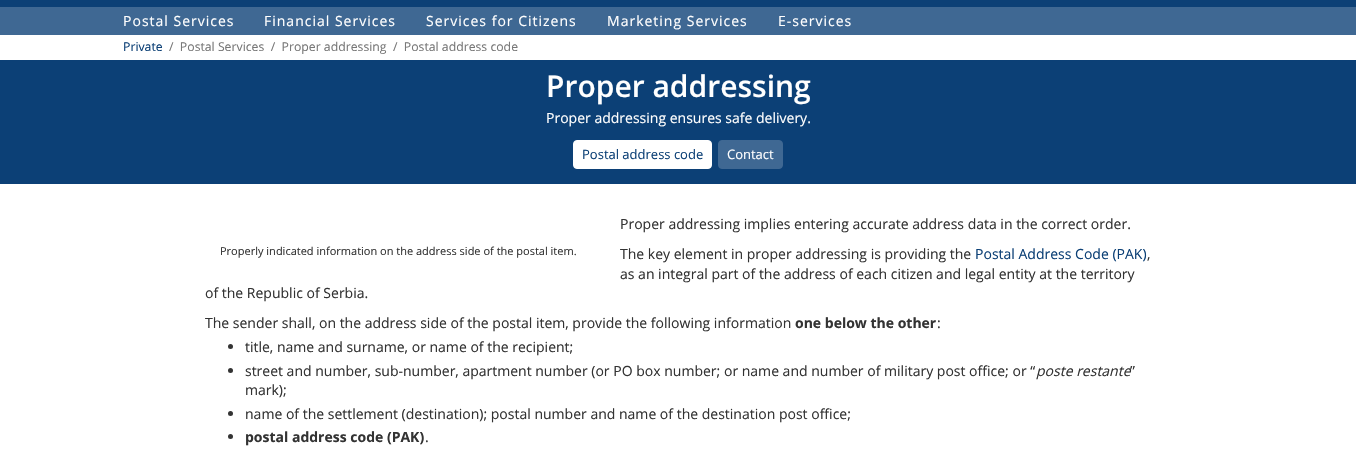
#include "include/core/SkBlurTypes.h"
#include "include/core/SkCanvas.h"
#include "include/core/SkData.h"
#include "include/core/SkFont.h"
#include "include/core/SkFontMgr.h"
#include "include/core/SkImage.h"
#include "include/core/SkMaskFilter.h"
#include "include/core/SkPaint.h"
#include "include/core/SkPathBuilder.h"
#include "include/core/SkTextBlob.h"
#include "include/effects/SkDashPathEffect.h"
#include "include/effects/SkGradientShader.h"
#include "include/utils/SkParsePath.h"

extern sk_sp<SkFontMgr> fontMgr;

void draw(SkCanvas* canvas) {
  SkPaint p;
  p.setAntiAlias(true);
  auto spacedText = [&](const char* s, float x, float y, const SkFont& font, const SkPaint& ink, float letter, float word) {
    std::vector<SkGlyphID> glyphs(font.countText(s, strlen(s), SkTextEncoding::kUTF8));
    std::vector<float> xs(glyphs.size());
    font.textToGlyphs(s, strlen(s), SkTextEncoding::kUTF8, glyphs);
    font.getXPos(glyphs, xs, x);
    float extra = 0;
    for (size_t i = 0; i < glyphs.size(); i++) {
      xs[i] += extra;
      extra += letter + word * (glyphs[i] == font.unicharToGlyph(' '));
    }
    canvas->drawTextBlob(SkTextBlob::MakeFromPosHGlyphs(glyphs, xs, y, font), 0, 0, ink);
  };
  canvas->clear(SK_ColorWHITE);
  p.setColor(SkColorSetRGB(12, 64, 118));
  canvas->drawRect(SkRect::MakeLTRB(0, 0, 1356, 7), p);
  p.setColor(SkColorSetRGB(63, 104, 147));
  canvas->drawRect(SkRect::MakeLTRB(0, 7, 1356, 35), p);
  p.setColor(SkColorSetRGB(12, 64, 118));
  canvas->drawRect(SkRect::MakeLTRB(0, 60, 1356, 184), p);
  p.setColor(SK_ColorWHITE);
  canvas->drawRoundRect(SkRect::MakeLTRB(573.5f, 140.5f, 711.5f, 168.5f), 3.5f, 3.5f, p);
  p.setStyle(SkPaint::kStroke_Style);
  p.setStrokeWidth(1);
  canvas->drawRoundRect(SkRect::MakeLTRB(573.5f, 140.5f, 711.5f, 168.5f), 3.5f, 3.5f, p);
  p.setStyle(SkPaint::kFill_Style);
  p.setColor(SkColorSetRGB(63, 104, 147));
  canvas->drawRoundRect(SkRect::MakeLTRB(718.5f, 140.5f, 782.5f, 168.5f), 3.5f, 3.5f, p);
  p.setStyle(SkPaint::kStroke_Style);
  canvas->drawRoundRect(SkRect::MakeLTRB(718.5f, 140.5f, 782.5f, 168.5f), 3.5f, 3.5f, p);
  p.setStyle(SkPaint::kFill_Style);
  p.setColor(SkColorSetRGB(51, 51, 51));
  canvas->drawCircle(230.5f, 346.5f, 2.5f, p);
  canvas->drawCircle(230.5f, 370.5f, 2.5f, p);
  canvas->drawCircle(230.5f, 413.5f, 2.5f, p);
  canvas->drawCircle(230.5f, 436.5f, 2.5f, p);
  SkFont font1(fontMgr->matchFamilyStyle("Open Sans", SkFontStyle::Normal()), 14);
  font1.setSubpixel(true);
  p.setColor(SK_ColorWHITE);
  spacedText("Postal Services", 123, 26, font1, p, 1, 0);
  spacedText("Financial Services", 264, 26, font1, p, 1, 0);
  spacedText("Services for Citizens", 426, 26, font1, p, 1, 0);
  spacedText("Marketing Services", 607, 26, font1, p, 1, 0);
  spacedText("Е-services", 778, 26, font1, p, 1, 0);
  SkFont font2(fontMgr->matchFamilyStyle("Open Sans", SkFontStyle::Normal()), 12.25f);
  font2.setSubpixel(true);
  p.setColor(SkColorSetRGB(12, 64, 118));
  canvas->drawString("Private", 123, 51, font2, p);
  p.setColor(SkColorSetRGB(119, 119, 119));
  canvas->drawString("/  Postal Services  /  Proper addressing  /  Postal address code", 169, 51, font2, p);
  SkFont font3(fontMgr->matchFamilyStyle("Open Sans", SkFontStyle(600, SkFontStyle::kNormal_Width, SkFontStyle::kUpright_Slant)), 30);
  font3.setSubpixel(true);
  p.setColor(SK_ColorWHITE);
  canvas->drawString("Proper addressing", 546, 97, font3, p);
  canvas->drawString("Proper addressing ensures safe delivery.", 546, 123, font1, p);
  SkFont font4(fontMgr->matchFamilyStyle("Open Sans", SkFontStyle::Normal()), 13);
  font4.setSubpixel(true);
  p.setColor(SkColorSetRGB(12, 64, 118));
  canvas->drawString("Postal address code", 582, 159, font4, p);
  p.setColor(SK_ColorWHITE);
  canvas->drawString("Contact", 727, 159, font4, p);
  p.setColor(SkColorSetRGB(51, 51, 51));
  canvas->drawString("Proper addressing implies entering accurate address data in the correct order.", 620, 229, font1, p);
  SkFont font5(fontMgr->matchFamilyStyle("Open Sans", SkFontStyle::Normal()), 11);
  font5.setSubpixel(true);
  canvas->drawString("Properly indicated information on the address side of the postal item.", 220, 255, font5, p);
  canvas->drawString("The key element in proper addressing is providing the", 620, 259, font1, p);
  p.setColor(SkColorSetRGB(12, 64, 118));
  canvas->drawString("Postal Address Code (PAK)", 975, 259, font1, p);
  p.setColor(SkColorSetRGB(51, 51, 51));
  canvas->drawString(",", 1147, 259, font1, p);
  canvas->drawString("as an integral part of the address of each citizen and legal entity at the territory", 620, 279, font1, p);
  canvas->drawString("of the Republic of Serbia.", 205, 298, font1, p);
  canvas->drawString("The sender shall, on the address side of the postal item, provide the following information", 205, 328, font1, p);
  SkFont font6(fontMgr->matchFamilyStyle("Open Sans", SkFontStyle::Bold()), 14);
  font6.setSubpixel(true);
  canvas->drawString("one below the other", 795, 328, font6, p);
  canvas->drawString(":", 937, 328, font1, p);
  canvas->drawString("title, name and surname, or name of the recipient;", 245, 352, font1, p);
  canvas->drawString("street and number, sub-number, apartment number (or PO box number; or name and number of military post office; or “", 245, 376, font1, p);
  SkFont font7(fontMgr->matchFamilyStyle("Open Sans", SkFontStyle::Italic()), 14);
  font7.setSubpixel(true);
  canvas->drawString("poste restante", 1036, 376, font7, p);
  canvas->drawString("”", 1130, 376, font1, p);
  canvas->drawString("mark);", 245, 395, font1, p);
  canvas->drawString("name of the settlement (destination); postal number and name of the destination post office;", 245, 419, font1, p);
  canvas->drawString("postal address code (PAK)", 245, 442, font6, p);
  canvas->drawString(".", 425, 442, font1, p);
}
